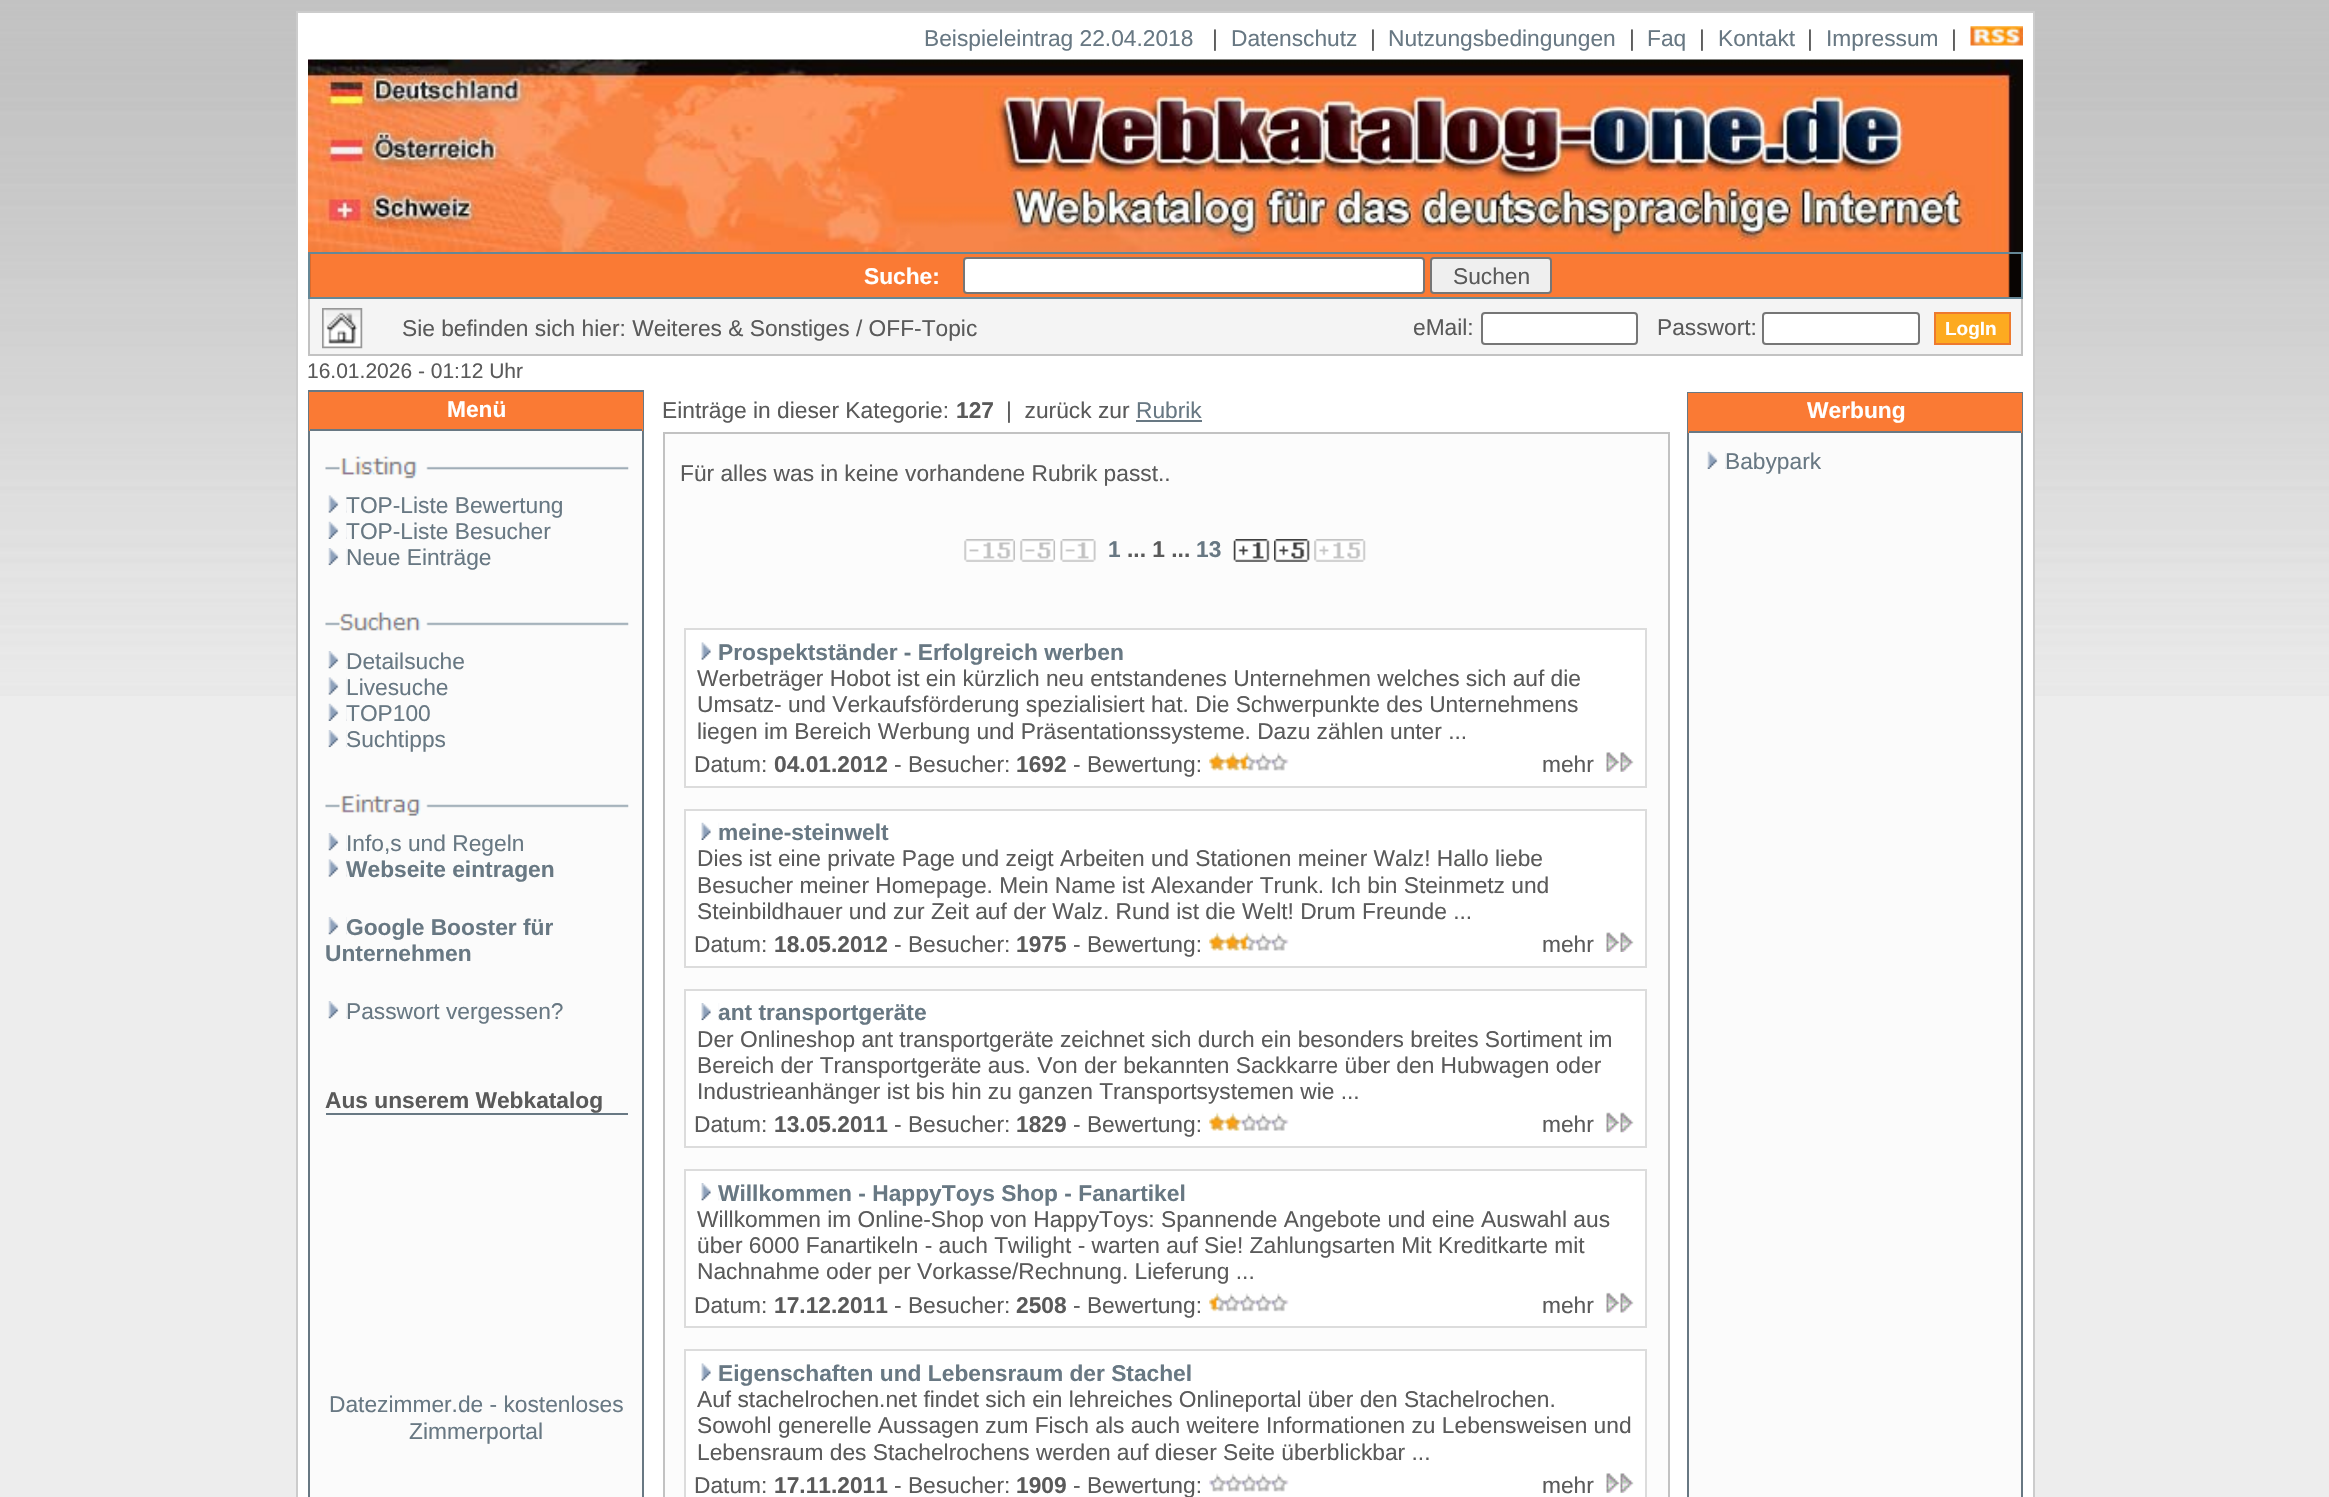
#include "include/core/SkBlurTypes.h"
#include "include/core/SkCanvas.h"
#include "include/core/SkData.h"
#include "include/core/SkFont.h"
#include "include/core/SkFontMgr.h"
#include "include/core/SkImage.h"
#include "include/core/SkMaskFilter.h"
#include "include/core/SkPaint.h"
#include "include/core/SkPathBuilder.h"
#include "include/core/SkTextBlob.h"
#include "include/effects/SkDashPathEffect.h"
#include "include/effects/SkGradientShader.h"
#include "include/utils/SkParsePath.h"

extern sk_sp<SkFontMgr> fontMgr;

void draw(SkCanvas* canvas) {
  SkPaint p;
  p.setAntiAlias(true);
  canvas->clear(SkColorSetRGB(237, 237, 237));
  canvas->drawImageRect(SkImages::DeferredFromEncodedData(SkData::MakeFromFileName("images/1.png")), SkRect::MakeLTRB(0, 0, 2329, 696), SkSamplingOptions());
  p.setColor(SK_ColorWHITE);
  canvas->drawRect(SkRect::MakeLTRB(297, 12, 2034, 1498), p);
  p.setStyle(SkPaint::kStroke_Style);
  p.setStrokeWidth(2);
  p.setColor(SkColorSetRGB(204, 204, 204));
  canvas->drawRect(SkRect::MakeLTRB(297, 12, 2034, 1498), p);
  canvas->drawImageRect(SkImages::DeferredFromEncodedData(SkData::MakeFromFileName("images/2.png")), SkRect::MakeLTRB(1970, 26, 2023, 46), SkSamplingOptions());
  canvas->drawImageRect(SkImages::DeferredFromEncodedData(SkData::MakeFromFileName("images/3.png")), SkRect::MakeLTRB(308, 59, 2023, 252), SkSamplingOptions());
  canvas->drawImageRect(SkImages::DeferredFromEncodedData(SkData::MakeFromFileName("images/4.png")), SkRect::MakeLTRB(310, 254, 2021, 297), SkSamplingOptions());
  p.setColor(SkColorSetRGB(101, 135, 150));
  canvas->drawRect(SkRect::MakeLTRB(309, 253, 2022, 298), p);
  p.setStyle(SkPaint::kFill_Style);
  p.setColor(SK_ColorWHITE);
  canvas->drawRoundRect(SkRect::MakeLTRB(964, 258, 1424, 293), 3, 3, p);
  p.setStyle(SkPaint::kStroke_Style);
  p.setColor(SkColorSetRGB(118, 118, 118));
  canvas->drawRoundRect(SkRect::MakeLTRB(964, 258, 1424, 293), 3, 3, p);
  p.setStyle(SkPaint::kFill_Style);
  p.setColor(SkColorSetRGB(239, 239, 239));
  canvas->drawRoundRect(SkRect::MakeLTRB(1431, 258, 1551, 293), 3, 3, p);
  p.setStyle(SkPaint::kStroke_Style);
  p.setColor(SkColorSetRGB(118, 118, 118));
  canvas->drawRoundRect(SkRect::MakeLTRB(1431, 258, 1551, 293), 3, 3, p);
  p.setStyle(SkPaint::kFill_Style);
  p.setColor(SkColorSetRGB(244, 244, 244));
  canvas->drawRect(SkRect::MakeLTRB(310, 299, 2021, 354), p);
  p.setColor(SkColorSetRGB(194, 194, 194));
  canvas->drawRect(SkRect::MakeLTRB(2021, 299, 2023, 355), p);
  canvas->drawRect(SkRect::MakeLTRB(308, 354, 2023, 356), p);
  canvas->drawRect(SkRect::MakeLTRB(308, 299, 310, 355), p);
  canvas->drawImageRect(SkImages::DeferredFromEncodedData(SkData::MakeFromFileName("images/5.png")), SkRect::MakeLTRB(322, 308, 363, 349), SkSamplingOptions());
  p.setColor(SK_ColorWHITE);
  canvas->drawRoundRect(SkRect::MakeLTRB(1482, 313, 1637, 344), 3, 3, p);
  p.setStyle(SkPaint::kStroke_Style);
  p.setColor(SkColorSetRGB(118, 118, 118));
  canvas->drawRoundRect(SkRect::MakeLTRB(1482, 313, 1637, 344), 3, 3, p);
  p.setStyle(SkPaint::kFill_Style);
  p.setColor(SK_ColorWHITE);
  canvas->drawRoundRect(SkRect::MakeLTRB(1763, 313, 1919, 344), 3, 3, p);
  p.setStyle(SkPaint::kStroke_Style);
  p.setColor(SkColorSetRGB(118, 118, 118));
  canvas->drawRoundRect(SkRect::MakeLTRB(1763, 313, 1919, 344), 3, 3, p);
  p.setStyle(SkPaint::kFill_Style);
  p.setColor(SkColorSetRGB(253, 170, 32));
  canvas->drawRect(SkRect::MakeLTRB(1935, 313, 2010, 344), p);
  p.setStyle(SkPaint::kStroke_Style);
  p.setColor(SkColorSetRGB(237, 121, 46));
  canvas->drawRect(SkRect::MakeLTRB(1935, 313, 2010, 344), p);
  p.setStyle(SkPaint::kFill_Style);
  p.setColor(SkColorSetRGB(251, 251, 251));
  canvas->drawRect(SkRect::MakeLTRB(310, 431, 642, 1497), p);
  p.setStyle(SkPaint::kStroke_Style);
  p.setColor(SkColorSetRGB(104, 120, 131));
  canvas->drawRect(SkRect::MakeLTRB(309, 391, 643, 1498), p);
  p.setStyle(SkPaint::kFill_Style);
  p.setColor(SkColorSetRGB(250, 122, 52));
  canvas->drawRect(SkRect::MakeLTRB(309, 392, 643, 431), p);
  p.setColor(SkColorSetRGB(104, 120, 131));
  canvas->drawRect(SkRect::MakeLTRB(310, 429, 642, 431), p);
  canvas->drawImageRect(SkImages::DeferredFromEncodedData(SkData::MakeFromFileName("images/6.png")), SkRect::MakeLTRB(325, 456, 629, 479), SkSamplingOptions());
  canvas->drawImageRect(SkImages::DeferredFromEncodedData(SkData::MakeFromFileName("images/7.png")), SkRect::MakeLTRB(328, 495, 347, 513), SkSamplingOptions());
  canvas->drawImageRect(SkImages::DeferredFromEncodedData(SkData::MakeFromFileName("images/8.png")), SkRect::MakeLTRB(328, 521, 347, 539), SkSamplingOptions());
  canvas->drawImageRect(SkImages::DeferredFromEncodedData(SkData::MakeFromFileName("images/9.png")), SkRect::MakeLTRB(328, 548, 347, 566), SkSamplingOptions());
  canvas->drawImageRect(SkImages::DeferredFromEncodedData(SkData::MakeFromFileName("images/10.png")), SkRect::MakeLTRB(325, 612, 629, 631), SkSamplingOptions());
  canvas->drawImageRect(SkImages::DeferredFromEncodedData(SkData::MakeFromFileName("images/11.png")), SkRect::MakeLTRB(328, 651, 347, 669), SkSamplingOptions());
  canvas->drawImageRect(SkImages::DeferredFromEncodedData(SkData::MakeFromFileName("images/12.png")), SkRect::MakeLTRB(328, 677, 347, 695), SkSamplingOptions());
  canvas->drawImageRect(SkImages::DeferredFromEncodedData(SkData::MakeFromFileName("images/13.png")), SkRect::MakeLTRB(328, 703, 347, 721), SkSamplingOptions());
  canvas->drawImageRect(SkImages::DeferredFromEncodedData(SkData::MakeFromFileName("images/14.png")), SkRect::MakeLTRB(328, 730, 347, 748), SkSamplingOptions());
  canvas->drawImageRect(SkImages::DeferredFromEncodedData(SkData::MakeFromFileName("images/15.png")), SkRect::MakeLTRB(325, 794, 629, 816), SkSamplingOptions());
  canvas->drawImageRect(SkImages::DeferredFromEncodedData(SkData::MakeFromFileName("images/16.png")), SkRect::MakeLTRB(328, 833, 347, 851), SkSamplingOptions());
  canvas->drawImageRect(SkImages::DeferredFromEncodedData(SkData::MakeFromFileName("images/17.png")), SkRect::MakeLTRB(328, 859, 347, 877), SkSamplingOptions());
  canvas->drawImageRect(SkImages::DeferredFromEncodedData(SkData::MakeFromFileName("images/18.png")), SkRect::MakeLTRB(328, 917, 347, 935), SkSamplingOptions());
  canvas->drawImageRect(SkImages::DeferredFromEncodedData(SkData::MakeFromFileName("images/19.png")), SkRect::MakeLTRB(328, 1001, 347, 1019), SkSamplingOptions());
  canvas->drawRect(SkRect::MakeLTRB(326, 1113, 628, 1115), p);
  canvas->drawRect(SkRect::MakeLTRB(1136, 420, 1202, 422), p);
  p.setColor(SkColorSetRGB(252, 252, 252));
  canvas->drawRect(SkRect::MakeLTRB(664, 433, 1669, 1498), p);
  p.setStyle(SkPaint::kStroke_Style);
  p.setColor(SkColorSetRGB(194, 194, 194));
  canvas->drawRect(SkRect::MakeLTRB(664, 433, 1669, 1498), p);
  canvas->drawImageRect(SkImages::DeferredFromEncodedData(SkData::MakeFromFileName("images/20.png")), SkRect::MakeLTRB(964, 539, 1015, 562), SkSamplingOptions());
  canvas->drawImageRect(SkImages::DeferredFromEncodedData(SkData::MakeFromFileName("images/21.png")), SkRect::MakeLTRB(1020, 539, 1056, 562), SkSamplingOptions());
  canvas->drawImageRect(SkImages::DeferredFromEncodedData(SkData::MakeFromFileName("images/22.png")), SkRect::MakeLTRB(1055, 539, 1096, 562), SkSamplingOptions());
  canvas->drawImageRect(SkImages::DeferredFromEncodedData(SkData::MakeFromFileName("images/23.png")), SkRect::MakeLTRB(1233, 539, 1270, 562), SkSamplingOptions());
  canvas->drawImageRect(SkImages::DeferredFromEncodedData(SkData::MakeFromFileName("images/24.png")), SkRect::MakeLTRB(1274, 539, 1310, 562), SkSamplingOptions());
  canvas->drawImageRect(SkImages::DeferredFromEncodedData(SkData::MakeFromFileName("images/25.png")), SkRect::MakeLTRB(1314, 539, 1366, 562), SkSamplingOptions());
  p.setStyle(SkPaint::kFill_Style);
  p.setColor(SK_ColorWHITE);
  canvas->drawRect(SkRect::MakeLTRB(685, 629, 1646, 787), p);
  p.setStyle(SkPaint::kStroke_Style);
  p.setColor(SkColorSetRGB(220, 220, 220));
  canvas->drawRect(SkRect::MakeLTRB(685, 629, 1646, 787), p);
  canvas->drawImageRect(SkImages::DeferredFromEncodedData(SkData::MakeFromFileName("images/26.png")), SkRect::MakeLTRB(701, 642, 720, 660), SkSamplingOptions());
  canvas->drawImageRect(SkImages::DeferredFromEncodedData(SkData::MakeFromFileName("images/27.png")), SkRect::MakeLTRB(1209, 752, 1289, 771), SkSamplingOptions());
  canvas->drawImageRect(SkImages::DeferredFromEncodedData(SkData::MakeFromFileName("images/28.png")), SkRect::MakeLTRB(1606, 752, 1634, 772), SkSamplingOptions());
  p.setStyle(SkPaint::kFill_Style);
  p.setColor(SK_ColorWHITE);
  canvas->drawRect(SkRect::MakeLTRB(685, 810, 1646, 967), p);
  p.setStyle(SkPaint::kStroke_Style);
  p.setColor(SkColorSetRGB(220, 220, 220));
  canvas->drawRect(SkRect::MakeLTRB(685, 810, 1646, 967), p);
  canvas->drawImageRect(SkImages::DeferredFromEncodedData(SkData::MakeFromFileName("images/29.png")), SkRect::MakeLTRB(701, 822, 720, 840), SkSamplingOptions());
  canvas->drawImageRect(SkImages::DeferredFromEncodedData(SkData::MakeFromFileName("images/30.png")), SkRect::MakeLTRB(1209, 932, 1289, 951), SkSamplingOptions());
  canvas->drawImageRect(SkImages::DeferredFromEncodedData(SkData::MakeFromFileName("images/31.png")), SkRect::MakeLTRB(1606, 932, 1634, 952), SkSamplingOptions());
  p.setStyle(SkPaint::kFill_Style);
  p.setColor(SK_ColorWHITE);
  canvas->drawRect(SkRect::MakeLTRB(685, 990, 1646, 1147), p);
  p.setStyle(SkPaint::kStroke_Style);
  p.setColor(SkColorSetRGB(220, 220, 220));
  canvas->drawRect(SkRect::MakeLTRB(685, 990, 1646, 1147), p);
  canvas->drawImageRect(SkImages::DeferredFromEncodedData(SkData::MakeFromFileName("images/32.png")), SkRect::MakeLTRB(701, 1003, 720, 1021), SkSamplingOptions());
  canvas->drawImageRect(SkImages::DeferredFromEncodedData(SkData::MakeFromFileName("images/33.png")), SkRect::MakeLTRB(1209, 1112, 1289, 1131), SkSamplingOptions());
  canvas->drawImageRect(SkImages::DeferredFromEncodedData(SkData::MakeFromFileName("images/34.png")), SkRect::MakeLTRB(1606, 1112, 1634, 1133), SkSamplingOptions());
  p.setStyle(SkPaint::kFill_Style);
  p.setColor(SK_ColorWHITE);
  canvas->drawRect(SkRect::MakeLTRB(685, 1170, 1646, 1327), p);
  p.setStyle(SkPaint::kStroke_Style);
  p.setColor(SkColorSetRGB(220, 220, 220));
  canvas->drawRect(SkRect::MakeLTRB(685, 1170, 1646, 1327), p);
  canvas->drawImageRect(SkImages::DeferredFromEncodedData(SkData::MakeFromFileName("images/35.png")), SkRect::MakeLTRB(701, 1183, 720, 1201), SkSamplingOptions());
  canvas->drawImageRect(SkImages::DeferredFromEncodedData(SkData::MakeFromFileName("images/36.png")), SkRect::MakeLTRB(1209, 1293, 1289, 1312), SkSamplingOptions());
  canvas->drawImageRect(SkImages::DeferredFromEncodedData(SkData::MakeFromFileName("images/37.png")), SkRect::MakeLTRB(1606, 1292, 1634, 1313), SkSamplingOptions());
  p.setStyle(SkPaint::kFill_Style);
  p.setColor(SK_ColorWHITE);
  canvas->drawRect(SkRect::MakeLTRB(685, 1350, 1646, 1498), p);
  p.setStyle(SkPaint::kStroke_Style);
  p.setColor(SkColorSetRGB(220, 220, 220));
  canvas->drawRect(SkRect::MakeLTRB(685, 1350, 1646, 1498), p);
  canvas->drawImageRect(SkImages::DeferredFromEncodedData(SkData::MakeFromFileName("images/26.png")), SkRect::MakeLTRB(701, 1363, 720, 1381), SkSamplingOptions());
  canvas->drawImageRect(SkImages::DeferredFromEncodedData(SkData::MakeFromFileName("images/38.png")), SkRect::MakeLTRB(1209, 1473, 1289, 1492), SkSamplingOptions());
  canvas->drawImageRect(SkImages::DeferredFromEncodedData(SkData::MakeFromFileName("images/28.png")), SkRect::MakeLTRB(1606, 1473, 1634, 1493), SkSamplingOptions());
  p.setStyle(SkPaint::kFill_Style);
  p.setColor(SkColorSetRGB(251, 251, 251));
  canvas->drawRect(SkRect::MakeLTRB(1689, 433, 2021, 1497), p);
  p.setStyle(SkPaint::kStroke_Style);
  p.setColor(SkColorSetRGB(104, 120, 131));
  canvas->drawRect(SkRect::MakeLTRB(1688, 393, 2022, 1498), p);
  p.setStyle(SkPaint::kFill_Style);
  p.setColor(SkColorSetRGB(250, 122, 52));
  canvas->drawRect(SkRect::MakeLTRB(1688, 393, 2022, 433), p);
  p.setColor(SkColorSetRGB(104, 120, 131));
  canvas->drawRect(SkRect::MakeLTRB(1689, 431, 2021, 433), p);
  canvas->drawImageRect(SkImages::DeferredFromEncodedData(SkData::MakeFromFileName("images/8.png")), SkRect::MakeLTRB(1707, 451, 1726, 469), SkSamplingOptions());
  SkFont font1(fontMgr->matchFamilyStyle("Liberation Sans", SkFontStyle::Normal()), 22.75f);
  font1.setSubpixel(true);
  canvas->drawString("Beispieleintrag 22.04.2018", 924, 46, font1, p);
  p.setColor(SkColorSetRGB(90, 90, 90));
  canvas->drawString("|", 1212, 46, font1, p);
  p.setColor(SkColorSetRGB(104, 120, 131));
  canvas->drawString("Datenschutz", 1231, 46, font1, p);
  p.setColor(SkColorSetRGB(90, 90, 90));
  canvas->drawString("|", 1370, 46, font1, p);
  p.setColor(SkColorSetRGB(104, 120, 131));
  canvas->drawString("Nutzungsbedingungen", 1388, 46, font1, p);
  p.setColor(SkColorSetRGB(90, 90, 90));
  canvas->drawString("|", 1629, 46, font1, p);
  p.setColor(SkColorSetRGB(104, 120, 131));
  canvas->drawString("Faq", 1647, 46, font1, p);
  p.setColor(SkColorSetRGB(90, 90, 90));
  canvas->drawString("|", 1699, 46, font1, p);
  p.setColor(SkColorSetRGB(104, 120, 131));
  canvas->drawString("Kontakt", 1718, 46, font1, p);
  p.setColor(SkColorSetRGB(90, 90, 90));
  canvas->drawString("|", 1807, 46, font1, p);
  p.setColor(SkColorSetRGB(104, 120, 131));
  canvas->drawString("Impressum", 1826, 46, font1, p);
  p.setColor(SkColorSetRGB(90, 90, 90));
  canvas->drawString("|", 1951, 46, font1, p);
  SkFont font2(fontMgr->matchFamilyStyle("Liberation Sans", SkFontStyle::Bold()), 22.75f);
  font2.setSubpixel(true);
  p.setColor(SK_ColorWHITE);
  canvas->drawString("Suche:", 864, 284, font2, p);
  p.setColor(SkColorSetRGB(90, 90, 90));
  canvas->drawString("Suchen", 1453, 284, font1, p);
  canvas->drawString("Sie befinden sich hier: Weiteres & Sonstiges / OFF-Topic", 402, 336, font1, p);
  canvas->drawString("eMail:", 1413, 335, font1, p);
  canvas->drawString("Passwort:", 1657, 335, font1, p);
  SkFont font3(fontMgr->matchFamilyStyle("Liberation Sans", SkFontStyle::Bold()), 19);
  font3.setSubpixel(true);
  p.setColor(SK_ColorWHITE);
  canvas->drawString("LogIn", 1945, 335, font3, p);
  SkFont font4(fontMgr->matchFamilyStyle("Liberation Sans", SkFontStyle::Normal()), 21);
  font4.setSubpixel(true);
  p.setColor(SkColorSetRGB(90, 90, 90));
  canvas->drawString("16.01.2026 - 01:12 Uhr", 307, 378, font4, p);
  p.setColor(SK_ColorWHITE);
  canvas->drawString("Menü", 447, 417, font2, p);
  p.setColor(SkColorSetRGB(104, 120, 131));
  canvas->drawString("TOP-Liste Bewertung", 346, 513, font1, p);
  canvas->drawString("TOP-Liste Besucher", 346, 539, font1, p);
  canvas->drawString("Neue Einträge", 346, 565, font1, p);
  canvas->drawString("Detailsuche", 346, 669, font1, p);
  canvas->drawString("Livesuche", 346, 695, font1, p);
  canvas->drawString("TOP100", 346, 721, font1, p);
  canvas->drawString("Suchtipps", 346, 747, font1, p);
  canvas->drawString("Info,s und Regeln", 346, 851, font1, p);
  canvas->drawString("Webseite eintragen", 346, 877, font2, p);
  canvas->drawString("Google Booster für", 346, 935, font2, p);
  canvas->drawString("Unternehmen", 325, 961, font2, p);
  canvas->drawString("Passwort vergessen?", 346, 1019, font1, p);
  p.setColor(SkColorSetRGB(90, 90, 90));
  canvas->drawString("Aus unserem Webkatalog", 325, 1108, font2, p);
  p.setColor(SkColorSetRGB(104, 120, 131));
  canvas->drawString("Datezimmer.de - kostenloses", 329, 1412, font1, p);
  canvas->drawString("Zimmerportal", 409, 1439, font1, p);
  p.setColor(SkColorSetRGB(90, 90, 90));
  canvas->drawString("Einträge in dieser Kategorie:", 662, 418, font1, p);
  canvas->drawString("127", 956, 418, font2, p);
  canvas->drawString("|  zurück zur", 1006, 418, font1, p);
  p.setColor(SkColorSetRGB(104, 120, 131));
  canvas->drawString("Rubrik", 1136, 418, font1, p);
  p.setColor(SkColorSetRGB(90, 90, 90));
  canvas->drawString("Für alles was in keine vorhandene Rubrik passt..", 680, 481, font1, p);
  p.setColor(SkColorSetRGB(104, 120, 131));
  canvas->drawString("1", 1108, 557, font2, p);
  p.setColor(SkColorSetRGB(90, 90, 90));
  canvas->drawString("... 1 ...", 1127, 557, font2, p);
  p.setColor(SkColorSetRGB(104, 120, 131));
  canvas->drawString("13", 1196, 557, font2, p);
  canvas->drawString("Prospektständer - Erfolgreich werben", 718, 660, font2, p);
  p.setColor(SkColorSetRGB(90, 90, 90));
  canvas->drawString("Werbeträger Hobot ist ein kürzlich neu entstandenes Unternehmen welches sich auf die", 697, 686, font1, p);
  canvas->drawString("Umsatz- und Verkaufsförderung spezialisiert hat. Die Schwerpunkte des Unternehmens", 697, 712, font1, p);
  canvas->drawString("liegen im Bereich Werbung und Präsentationssysteme. Dazu zählen unter ...", 697, 739, font1, p);
  canvas->drawString("Datum:", 694, 772, font1, p);
  canvas->drawString("04.01.2012", 774, 772, font2, p);
  canvas->drawString("- Besucher:", 894, 772, font1, p);
  canvas->drawString("1692", 1016, 772, font2, p);
  canvas->drawString("- Bewertung:", 1073, 772, font1, p);
  canvas->drawString("mehr", 1542, 772, font1, p);
  p.setColor(SkColorSetRGB(104, 120, 131));
  canvas->drawString("meine-steinwelt", 718, 840, font2, p);
  p.setColor(SkColorSetRGB(90, 90, 90));
  canvas->drawString("Dies ist eine private Page und zeigt Arbeiten und Stationen meiner Walz! Hallo liebe", 697, 866, font1, p);
  canvas->drawString("Besucher meiner Homepage. Mein Name ist Alexander Trunk. Ich bin Steinmetz und", 697, 893, font1, p);
  canvas->drawString("Steinbildhauer und zur Zeit auf der Walz. Rund ist die Welt! Drum Freunde ...", 697, 919, font1, p);
  canvas->drawString("Datum:", 694, 952, font1, p);
  canvas->drawString("18.05.2012", 774, 952, font2, p);
  canvas->drawString("- Besucher:", 894, 952, font1, p);
  canvas->drawString("1975", 1016, 952, font2, p);
  canvas->drawString("- Bewertung:", 1073, 952, font1, p);
  canvas->drawString("mehr", 1542, 952, font1, p);
  p.setColor(SkColorSetRGB(104, 120, 131));
  canvas->drawString("ant transportgeräte", 718, 1020, font2, p);
  p.setColor(SkColorSetRGB(90, 90, 90));
  canvas->drawString("Der Onlineshop ant transportgeräte zeichnet sich durch ein besonders breites Sortiment im", 697, 1047, font1, p);
  canvas->drawString("Bereich der Transportgeräte aus. Von der bekannten Sackkarre über den Hubwagen oder", 697, 1073, font1, p);
  canvas->drawString("Industrieanhänger ist bis hin zu ganzen Transportsystemen wie ...", 697, 1099, font1, p);
  canvas->drawString("Datum:", 694, 1132, font1, p);
  canvas->drawString("13.05.2011", 774, 1132, font2, p);
  canvas->drawString("- Besucher:", 894, 1132, font1, p);
  canvas->drawString("1829", 1016, 1132, font2, p);
  canvas->drawString("- Bewertung:", 1073, 1132, font1, p);
  canvas->drawString("mehr", 1542, 1132, font1, p);
  p.setColor(SkColorSetRGB(104, 120, 131));
  canvas->drawString("Willkommen - HappyToys Shop - Fanartikel", 718, 1201, font2, p);
  p.setColor(SkColorSetRGB(90, 90, 90));
  canvas->drawString("Willkommen im Online-Shop von HappyToys: Spannende Angebote und eine Auswahl aus", 697, 1227, font1, p);
  canvas->drawString("über 6000 Fanartikeln - auch Twilight - warten auf Sie! Zahlungsarten Mit Kreditkarte mit", 697, 1253, font1, p);
  canvas->drawString("Nachnahme oder per Vorkasse/Rechnung. Lieferung ...", 697, 1279, font1, p);
  canvas->drawString("Datum:", 694, 1313, font1, p);
  canvas->drawString("17.12.2011", 774, 1313, font2, p);
  canvas->drawString("- Besucher:", 894, 1313, font1, p);
  canvas->drawString("2508", 1016, 1313, font2, p);
  canvas->drawString("- Bewertung:", 1073, 1313, font1, p);
  canvas->drawString("mehr", 1542, 1313, font1, p);
  p.setColor(SkColorSetRGB(104, 120, 131));
  canvas->drawString("Eigenschaften und Lebensraum der Stachel", 718, 1381, font2, p);
  p.setColor(SkColorSetRGB(90, 90, 90));
  canvas->drawString("Auf stachelrochen.net findet sich ein lehreiches Onlineportal über den Stachelrochen.", 697, 1407, font1, p);
  canvas->drawString("Sowohl generelle Aussagen zum Fisch als auch weitere Informationen zu Lebensweisen und", 697, 1433, font1, p);
  canvas->drawString("Lebensraum des Stachelrochens werden auf dieser Seite überblickbar ...", 697, 1460, font1, p);
  canvas->drawString("Datum:", 694, 1493, font1, p);
  canvas->drawString("17.11.2011", 774, 1493, font2, p);
  canvas->drawString("- Besucher:", 894, 1493, font1, p);
  canvas->drawString("1909", 1016, 1493, font2, p);
  canvas->drawString("- Bewertung:", 1073, 1493, font1, p);
  canvas->drawString("mehr", 1542, 1493, font1, p);
  p.setColor(SK_ColorWHITE);
  canvas->drawString("Werbung", 1807, 418, font2, p);
  p.setColor(SkColorSetRGB(104, 120, 131));
  canvas->drawString("Babypark", 1725, 469, font1, p);
}
